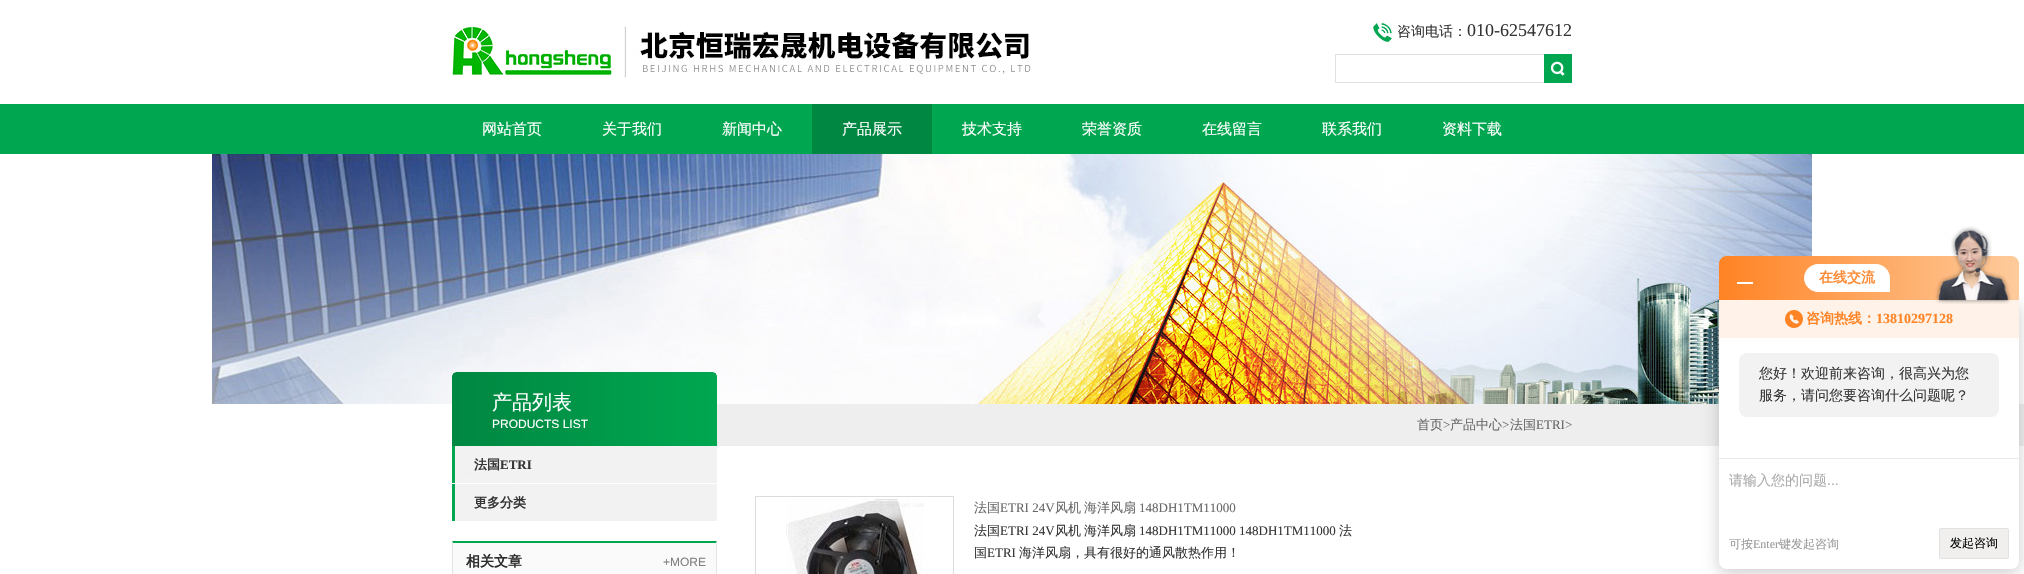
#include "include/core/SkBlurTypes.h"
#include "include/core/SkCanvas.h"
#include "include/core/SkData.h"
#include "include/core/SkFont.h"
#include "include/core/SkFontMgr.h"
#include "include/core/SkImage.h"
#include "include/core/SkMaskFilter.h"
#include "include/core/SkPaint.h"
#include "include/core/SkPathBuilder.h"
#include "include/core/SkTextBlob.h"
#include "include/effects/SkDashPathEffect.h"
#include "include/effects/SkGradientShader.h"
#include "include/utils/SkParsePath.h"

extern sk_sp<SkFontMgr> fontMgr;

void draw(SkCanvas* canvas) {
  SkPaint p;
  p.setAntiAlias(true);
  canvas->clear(SK_ColorWHITE);
  p.setColor(SkColorSetRGB(238, 238, 238));
  canvas->drawRect(SkRect::MakeLTRB(717, 404, 2024, 446), p);
  canvas->drawImageRect(SkImages::DeferredFromEncodedData(SkData::MakeFromFileName("images/1.png")), SkRect::MakeLTRB(452, 26, 1031, 78), SkSamplingOptions());
  canvas->drawImageRect(SkImages::DeferredFromEncodedData(SkData::MakeFromFileName("images/2.png")), SkRect::MakeLTRB(1372, 22, 1394, 43), SkSamplingOptions());
  p.setColor(SkColorSetRGB(225, 225, 225));
  canvas->drawRect(SkRect::MakeLTRB(1335, 54, 1544, 55), p);
  canvas->drawRect(SkRect::MakeLTRB(1335, 82, 1544, 83), p);
  canvas->drawRect(SkRect::MakeLTRB(1335, 54, 1336, 83), p);
  canvas->drawImageRect(SkImages::DeferredFromEncodedData(SkData::MakeFromFileName("images/3.png")), SkRect::MakeLTRB(1544, 54, 1572, 83), SkSamplingOptions());
  p.setColor(SkColorSetRGB(0, 166, 80));
  canvas->drawRect(SkRect::MakeLTRB(0, 104, 2024, 154), p);
  p.setColor(SkColorSetRGB(0, 135, 66));
  canvas->drawRect(SkRect::MakeLTRB(812, 104, 932, 154), p);
  canvas->drawImageRect(SkImages::DeferredFromEncodedData(SkData::MakeFromFileName("images/4.png")), SkRect::MakeLTRB(212, 154, 1812, 404), SkSamplingOptions());
  p.setColor(SkColorSetARGB(51, 0, 0, 0));
  p.setMaskFilter(SkMaskFilter::MakeBlur(kNormal_SkBlurStyle, 8));
  canvas->drawRoundRect(SkRect::MakeLTRB(1719, 304, 2019, 573), 8, 8, p);
  p.setMaskFilter(nullptr);
  {
    const SkColor colors[] = {SkColorSetRGB(255, 131, 36), SkColorSetRGB(254, 203, 156)};
    const float stops[] = {0, 1};
    const SkPoint ends[] = {{1719, 278}, {2019, 278}};
    p.setShader(SkGradientShader::MakeLinear(ends, colors, stops, 2, SkTileMode::kClamp));
    p.setAlpha(255);
  }
  canvas->drawPath(SkPathBuilder().moveTo(1727, 256).lineTo(2011, 256).cubicTo(2015.5f, 256, 2019, 259.5f, 2019, 264).lineTo(2019, 300).lineTo(1719, 300).lineTo(1719, 264).cubicTo(1719, 259.5f, 1722.5f, 256, 1727, 256).close().detach(), p);
  p.setShader(nullptr);
  p.setColor(SK_ColorWHITE);
  canvas->drawRect(SkRect::MakeLTRB(1737, 282, 1753, 284), p);
  canvas->drawPath(SkPathBuilder().moveTo(1818, 264).lineTo(1876, 264).cubicTo(1883.5f, 264, 1890, 270.5f, 1890, 278).lineTo(1890, 292).lineTo(1818, 292).cubicTo(1810.5f, 292, 1804, 285.5f, 1804, 278).cubicTo(1804, 270.5f, 1810.5f, 264, 1818, 264).close().detach(), p);
  canvas->drawPath(SkPathBuilder().moveTo(1719, 300).lineTo(2019, 300).lineTo(2019, 561).cubicTo(2019, 565.5f, 2015.5f, 569, 2011, 569).lineTo(1727, 569).cubicTo(1722.5f, 569, 1719, 565.5f, 1719, 561).close().detach(), p);
  p.setColor(SkColorSetRGB(255, 243, 233));
  canvas->drawRect(SkRect::MakeLTRB(1719, 300, 2019, 338), p);
  canvas->drawImageRect(SkImages::DeferredFromEncodedData(SkData::MakeFromFileName("images/5.png")), SkRect::MakeLTRB(1935, 226, 2011, 304), SkSamplingOptions());
  canvas->drawImageRect(SkImages::DeferredFromEncodedData(SkData::MakeFromFileName("images/6.png")), SkRect::MakeLTRB(1785, 310, 1803, 328), SkSamplingOptions());
  p.setColor(SkColorSetRGB(242, 242, 242));
  canvas->drawRoundRect(SkRect::MakeLTRB(1739, 353, 1999, 417), 8, 8, p);
  p.setColor(SkColorSetRGB(234, 234, 234));
  canvas->drawRect(SkRect::MakeLTRB(1719, 458, 2019, 459), p);
  p.setColor(SkColorSetRGB(240, 239, 237));
  canvas->drawRoundRect(SkRect::MakeLTRB(1939.5f, 528.5f, 2008.5f, 558.5f), 1.5f, 1.5f, p);
  p.setStyle(SkPaint::kStroke_Style);
  p.setStrokeWidth(1);
  p.setColor(SkColorSetRGB(226, 226, 226));
  canvas->drawRoundRect(SkRect::MakeLTRB(1939.5f, 528.5f, 2008.5f, 558.5f), 1.5f, 1.5f, p);
  canvas->drawImageRect(SkImages::DeferredFromEncodedData(SkData::MakeFromFileName("images/7.png")), SkRect::MakeLTRB(452, 372, 717, 446), SkSamplingOptions());
  canvas->drawImageRect(SkImages::DeferredFromEncodedData(SkData::MakeFromFileName("images/8.png")), SkRect::MakeLTRB(452, 446, 717, 483), SkSamplingOptions());
  canvas->drawImageRect(SkImages::DeferredFromEncodedData(SkData::MakeFromFileName("images/8.png")), SkRect::MakeLTRB(452, 484, 717, 521), SkSamplingOptions());
  p.setStyle(SkPaint::kFill_Style);
  p.setColor(SkColorSetRGB(0, 166, 80));
  canvas->drawPath(SkPathBuilder().moveTo(452, 541).lineTo(717, 541).lineTo(716, 543).lineTo(453, 543).close().detach(), p);
  p.setColor(SkColorSetRGB(228, 228, 228));
  canvas->drawPath(SkPathBuilder().moveTo(717, 541).lineTo(717, 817).lineTo(716, 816).lineTo(716, 543).close().detach(), p);
  canvas->drawPath(SkPathBuilder().moveTo(452, 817).lineTo(452, 541).lineTo(453, 543).lineTo(453, 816).close().detach(), p);
  p.setColor(SkColorSetRGB(250, 250, 250));
  canvas->drawRect(SkRect::MakeLTRB(453, 543, 716, 574), p);
  p.setStyle(SkPaint::kStroke_Style);
  p.setColor(SkColorSetRGB(220, 220, 220));
  canvas->drawRect(SkRect::MakeLTRB(755.5f, 496.5f, 953.5f, 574.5f), p);
  canvas->drawImageRect(SkImages::DeferredFromEncodedData(SkData::MakeFromFileName("images/9.png")), SkRect::MakeLTRB(786, 499, 924, 574), SkSamplingOptions());
  SkFont font1(fontMgr->matchFamilyStyle("WenQuanYi Zen Hei", SkFontStyle(500, SkFontStyle::kNormal_Width, SkFontStyle::kUpright_Slant)), 14);
  font1.setSubpixel(true);
  p.setStyle(SkPaint::kFill_Style);
  p.setColor(SkColorSetRGB(53, 53, 53));
  canvas->drawString("咨询电话：", 1397, 36, font1, p);
  SkFont font2(fontMgr->matchFamilyStyle("Liberation Serif", SkFontStyle::Normal()), 18);
  font2.setSubpixel(true);
  canvas->drawString("010-62547612", 1467, 36, font2, p);
  SkFont font3(fontMgr->matchFamilyStyle("WenQuanYi Zen Hei", SkFontStyle(500, SkFontStyle::kNormal_Width, SkFontStyle::kUpright_Slant)), 15);
  font3.setSubpixel(true);
  p.setColor(SK_ColorWHITE);
  canvas->drawString("网站首页", 482, 134, font3, p);
  canvas->drawString("关于我们", 602, 134, font3, p);
  canvas->drawString("新闻中心", 722, 134, font3, p);
  canvas->drawString("产品展示", 842, 134, font3, p);
  canvas->drawString("技术支持", 962, 134, font3, p);
  canvas->drawString("荣誉资质", 1082, 134, font3, p);
  canvas->drawString("在线留言", 1202, 134, font3, p);
  canvas->drawString("联系我们", 1322, 134, font3, p);
  canvas->drawString("资料下载", 1442, 134, font3, p);
  SkFont font4(fontMgr->matchFamilyStyle("WenQuanYi Zen Hei", SkFontStyle::Bold()), 14);
  font4.setSubpixel(true);
  p.setColor(SkColorSetRGB(251, 139, 54));
  canvas->drawString("在线交流", 1819, 282, font4, p);
  p.setColor(SkColorSetRGB(255, 132, 38));
  canvas->drawString("咨询热线：", 1806, 323, font4, p);
  SkFont font5(fontMgr->matchFamilyStyle("Liberation Serif", SkFontStyle::Bold()), 14);
  font5.setSubpixel(true);
  canvas->drawString("13810297128", 1876, 323, font5, p);
  p.setColor(SkColorSetRGB(53, 53, 53));
  canvas->drawString("您好！欢迎前来咨询，很高兴为您", 1759, 378, font1, p);
  canvas->drawString("服务，请问您要咨询什么问题呢？", 1759, 400, font1, p);
  p.setColor(SkColorSetRGB(170, 170, 170));
  canvas->drawString("请输入您的问题", 1729, 485, font1, p);
  SkFont font6(fontMgr->matchFamilyStyle("Liberation Sans", SkFontStyle::Normal()), 14);
  font6.setSubpixel(true);
  canvas->drawString("...", 1827, 485, font6, p);
  SkFont font7(fontMgr->matchFamilyStyle("WenQuanYi Zen Hei", SkFontStyle(500, SkFontStyle::kNormal_Width, SkFontStyle::kUpright_Slant)), 12);
  font7.setSubpixel(true);
  p.setColor(SkColorSetRGB(153, 153, 153));
  canvas->drawString("可按", 1729, 548, font7, p);
  SkFont font8(fontMgr->matchFamilyStyle("Liberation Serif", SkFontStyle::Normal()), 12);
  font8.setSubpixel(true);
  canvas->drawString("Enter", 1753, 548, font8, p);
  canvas->drawString("键发起咨询", 1779, 548, font7, p);
  p.setColor(SK_ColorBLACK);
  canvas->drawString("发起咨询", 1950, 547, font7, p);
  SkFont font9(fontMgr->matchFamilyStyle("WenQuanYi Zen Hei", SkFontStyle(500, SkFontStyle::kNormal_Width, SkFontStyle::kUpright_Slant)), 20);
  font9.setSubpixel(true);
  p.setColor(SK_ColorWHITE);
  canvas->drawString("产品列表", 492, 409, font9, p);
  SkFont font10(fontMgr->matchFamilyStyle("Liberation Sans", SkFontStyle::Normal()), 12);
  font10.setSubpixel(true);
  canvas->drawString("PRODUCTS LIST", 492, 428, font10, p);
  SkFont font11(fontMgr->matchFamilyStyle("WenQuanYi Zen Hei", SkFontStyle::Bold()), 13);
  font11.setSubpixel(true);
  p.setColor(SkColorSetRGB(53, 53, 53));
  canvas->drawString("法国", 474, 469, font11, p);
  SkFont font12(fontMgr->matchFamilyStyle("Liberation Serif", SkFontStyle::Bold()), 13);
  font12.setSubpixel(true);
  canvas->drawString("ETRI", 500, 469, font12, p);
  canvas->drawString("更多分类", 474, 507, font11, p);
  p.setColor(SkColorSetRGB(45, 45, 45));
  canvas->drawString("相关文章", 466, 566, font4, p);
  p.setColor(SkColorSetRGB(128, 128, 128));
  canvas->drawString("+MORE", 663, 566, font10, p);
  SkFont font13(fontMgr->matchFamilyStyle("WenQuanYi Zen Hei", SkFontStyle(500, SkFontStyle::kNormal_Width, SkFontStyle::kUpright_Slant)), 13);
  font13.setSubpixel(true);
  p.setColor(SkColorSetRGB(104, 104, 104));
  canvas->drawString("首页", 1417, 429, font13, p);
  SkFont font14(fontMgr->matchFamilyStyle("Liberation Serif", SkFontStyle::Normal()), 13);
  font14.setSubpixel(true);
  canvas->drawString(">", 1443, 429, font14, p);
  canvas->drawString("产品中心", 1450, 429, font13, p);
  canvas->drawString(">", 1502, 429, font14, p);
  canvas->drawString("法国", 1510, 429, font13, p);
  canvas->drawString("ETRI", 1536, 429, font14, p);
  canvas->drawString(">", 1565, 429, font14, p);
  canvas->drawString("法国", 974, 512, font13, p);
  canvas->drawString("ETRI 24V", 1000, 512, font14, p);
  canvas->drawString("风机", 1055, 512, font13, p);
  canvas->drawString("海洋风扇", 1084, 512, font13, p);
  canvas->drawString("148DH1TM11000", 1139, 512, font14, p);
  p.setColor(SkColorSetRGB(53, 53, 53));
  canvas->drawString("法国", 974, 535, font13, p);
  canvas->drawString("ETRI 24V", 1000, 535, font14, p);
  canvas->drawString("风机", 1055, 535, font13, p);
  canvas->drawString("海洋风扇", 1084, 535, font13, p);
  canvas->drawString("148DH1TM11000 148DH1TM11000", 1139, 535, font14, p);
  canvas->drawString("法", 1339, 535, font13, p);
  canvas->drawString("国", 974, 557, font13, p);
  canvas->drawString("ETRI", 987, 557, font14, p);
  canvas->drawString("海洋风扇，具有很好的通风散热作用！", 1019, 557, font13, p);
}
